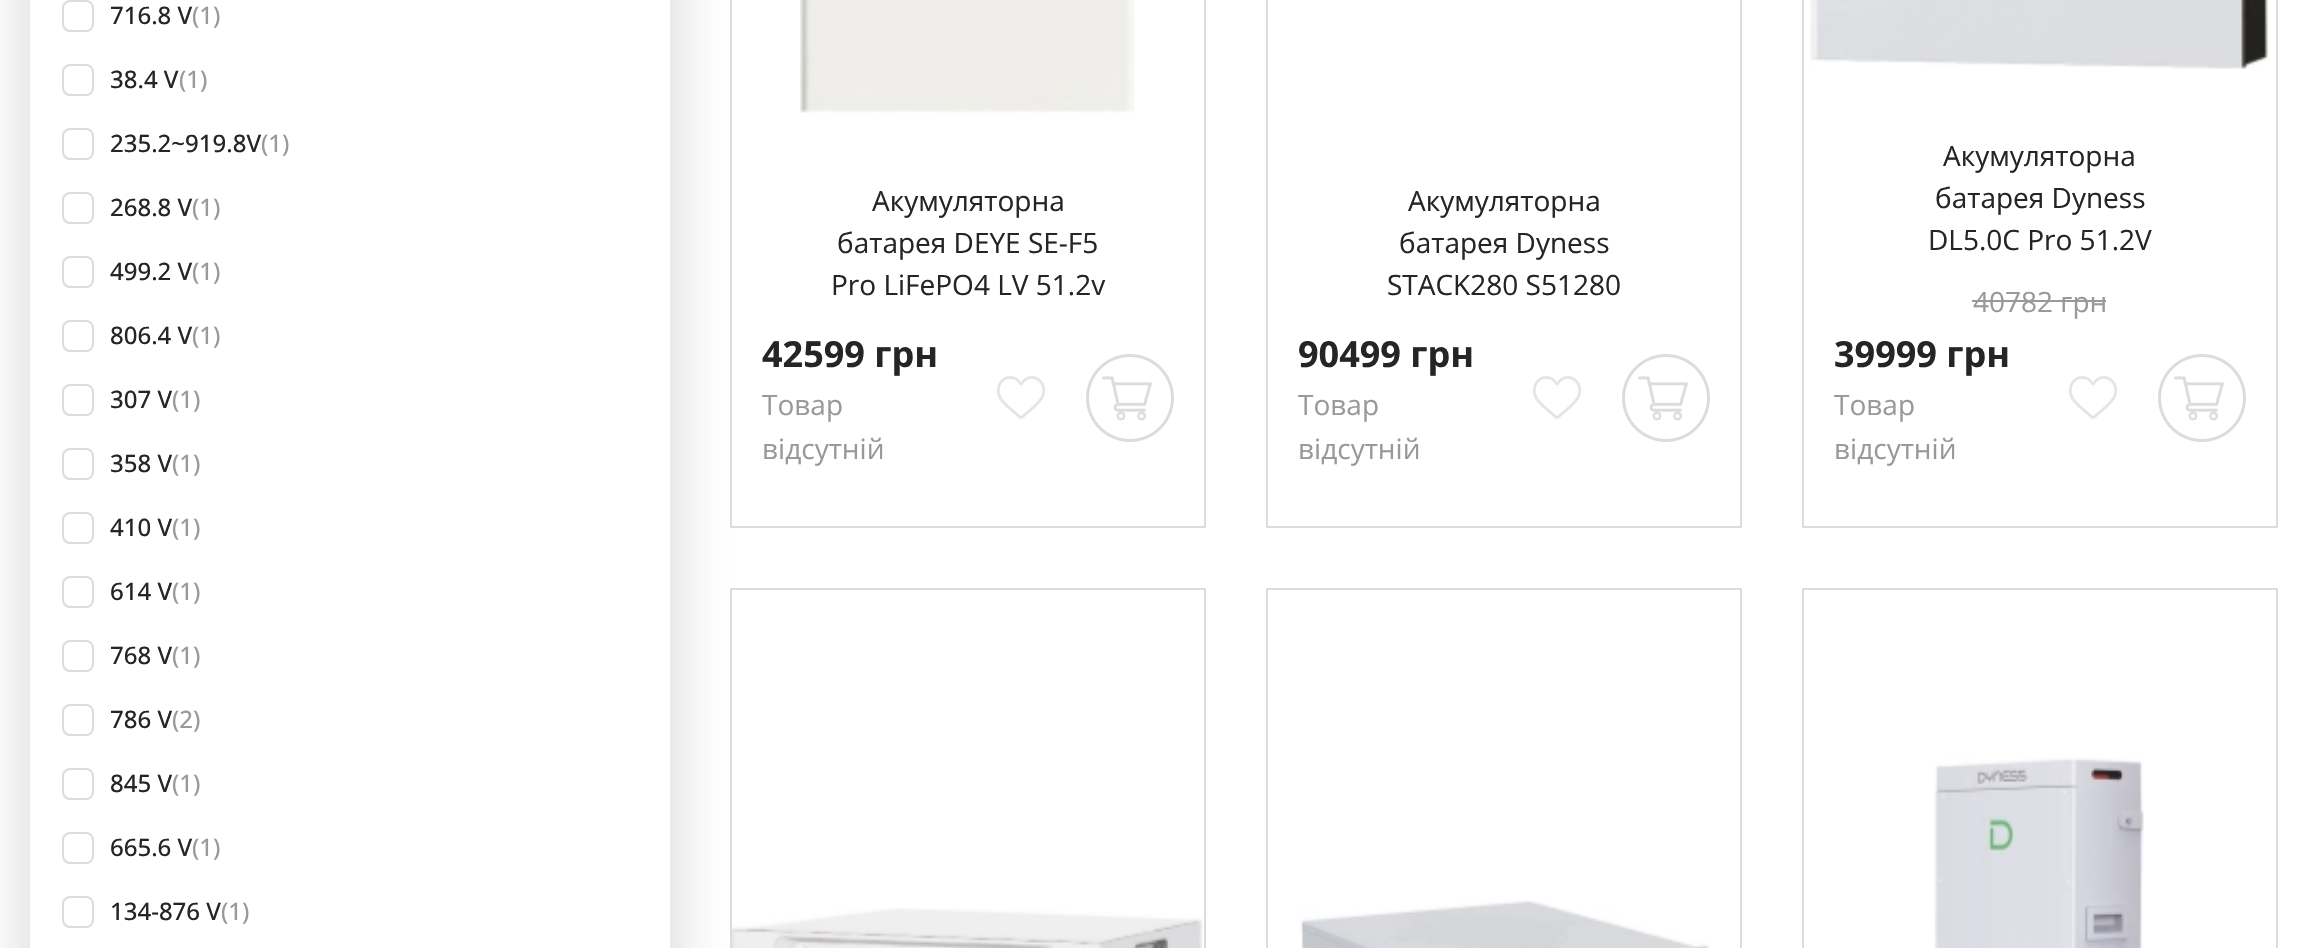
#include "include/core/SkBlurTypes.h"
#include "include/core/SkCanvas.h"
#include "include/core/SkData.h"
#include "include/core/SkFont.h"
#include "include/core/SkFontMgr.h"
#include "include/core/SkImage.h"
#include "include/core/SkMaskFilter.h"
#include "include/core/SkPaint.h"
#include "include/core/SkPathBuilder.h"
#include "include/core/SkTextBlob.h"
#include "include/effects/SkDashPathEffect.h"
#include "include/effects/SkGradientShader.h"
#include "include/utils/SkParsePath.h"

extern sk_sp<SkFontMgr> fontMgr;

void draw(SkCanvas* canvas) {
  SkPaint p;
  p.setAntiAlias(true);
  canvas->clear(SK_ColorWHITE);
  canvas->save();
  canvas->clipPath(SkPathBuilder(SkPathFillType::kEvenOdd).moveTo(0, 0).lineTo(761, 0).lineTo(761, 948).lineTo(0, 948).close().moveTo(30, -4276).lineTo(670, -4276).lineTo(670, 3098).lineTo(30, 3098).close().detach(), true);
  p.setColor(SkColorSetARGB(51, 37, 37, 37));
  p.setMaskFilter(SkMaskFilter::MakeBlur(kNormal_SkBlurStyle, 30));
  canvas->drawRect(SkRect::MakeLTRB(30, -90, 670, 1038), p);
  p.setMaskFilter(nullptr);
  canvas->restore();
  p.setStyle(SkPaint::kStroke_Style);
  p.setStrokeWidth(2);
  p.setColor(SkColorSetRGB(220, 220, 220));
  canvas->drawRoundRect(SkRect::MakeLTRB(63, 1, 93, 31), 7, 7, p);
  canvas->drawRoundRect(SkRect::MakeLTRB(63, 65, 93, 95), 7, 7, p);
  canvas->drawRoundRect(SkRect::MakeLTRB(63, 129, 93, 159), 7, 7, p);
  canvas->drawRoundRect(SkRect::MakeLTRB(63, 193, 93, 223), 7, 7, p);
  canvas->drawRoundRect(SkRect::MakeLTRB(63, 257, 93, 287), 7, 7, p);
  canvas->drawRoundRect(SkRect::MakeLTRB(63, 321, 93, 351), 7, 7, p);
  canvas->drawRoundRect(SkRect::MakeLTRB(63, 385, 93, 415), 7, 7, p);
  canvas->drawRoundRect(SkRect::MakeLTRB(63, 449, 93, 479), 7, 7, p);
  canvas->drawRoundRect(SkRect::MakeLTRB(63, 513, 93, 543), 7, 7, p);
  canvas->drawRoundRect(SkRect::MakeLTRB(63, 577, 93, 607), 7, 7, p);
  canvas->drawRoundRect(SkRect::MakeLTRB(63, 641, 93, 671), 7, 7, p);
  canvas->drawRoundRect(SkRect::MakeLTRB(63, 705, 93, 735), 7, 7, p);
  canvas->drawRoundRect(SkRect::MakeLTRB(63, 769, 93, 799), 7, 7, p);
  canvas->drawRoundRect(SkRect::MakeLTRB(63, 833, 93, 863), 7, 7, p);
  canvas->drawRoundRect(SkRect::MakeLTRB(63, 897, 93, 927), 7, 7, p);
  canvas->drawRect(SkRect::MakeLTRB(731, -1, 1205, 527), p);
  canvas->drawImageRect(SkImages::DeferredFromEncodedData(SkData::MakeFromFileName("images/1.png")), SkRect::MakeLTRB(800, 0, 1135, 113), SkSamplingOptions());
  canvas->drawImageRect(SkImages::DeferredFromEncodedData(SkData::MakeFromFileName("images/2.png")), SkRect::MakeLTRB(997, 376, 1045, 419), SkSamplingOptions());
  canvas->drawImageRect(SkImages::DeferredFromEncodedData(SkData::MakeFromFileName("images/3.png")), SkRect::MakeLTRB(1086, 354, 1174, 442), SkSamplingOptions());
  canvas->drawRect(SkRect::MakeLTRB(1267, -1, 1741, 527), p);
  canvas->drawImageRect(SkImages::DeferredFromEncodedData(SkData::MakeFromFileName("images/2.png")), SkRect::MakeLTRB(1533, 376, 1581, 419), SkSamplingOptions());
  canvas->drawImageRect(SkImages::DeferredFromEncodedData(SkData::MakeFromFileName("images/3.png")), SkRect::MakeLTRB(1622, 354, 1710, 442), SkSamplingOptions());
  canvas->drawRect(SkRect::MakeLTRB(1803, -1, 2277, 527), p);
  canvas->drawImageRect(SkImages::DeferredFromEncodedData(SkData::MakeFromFileName("images/4.png")), SkRect::MakeLTRB(1810, 0, 2268, 69), SkSamplingOptions());
  p.setStyle(SkPaint::kFill_Style);
  p.setColor(SkColorSetRGB(153, 153, 153));
  canvas->drawRect(SkRect::MakeLTRB(1972, 300, 2106, 302), p);
  canvas->drawImageRect(SkImages::DeferredFromEncodedData(SkData::MakeFromFileName("images/2.png")), SkRect::MakeLTRB(2069, 376, 2117, 419), SkSamplingOptions());
  canvas->drawImageRect(SkImages::DeferredFromEncodedData(SkData::MakeFromFileName("images/3.png")), SkRect::MakeLTRB(2158, 354, 2246, 442), SkSamplingOptions());
  p.setStyle(SkPaint::kStroke_Style);
  p.setColor(SkColorSetRGB(220, 220, 220));
  canvas->drawRect(SkRect::MakeLTRB(731, 589, 1205, 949), p);
  canvas->drawImageRect(SkImages::DeferredFromEncodedData(SkData::MakeFromFileName("images/5.png")), SkRect::MakeLTRB(732, 908, 1203, 948), SkSamplingOptions());
  canvas->drawRect(SkRect::MakeLTRB(1267, 589, 1741, 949), p);
  canvas->drawImageRect(SkImages::DeferredFromEncodedData(SkData::MakeFromFileName("images/6.png")), SkRect::MakeLTRB(1300, 900, 1709, 948), SkSamplingOptions());
  canvas->drawRect(SkRect::MakeLTRB(1803, 589, 2277, 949), p);
  canvas->drawImageRect(SkImages::DeferredFromEncodedData(SkData::MakeFromFileName("images/7.png")), SkRect::MakeLTRB(1934, 757, 2144, 948), SkSamplingOptions());
  SkFont font1(fontMgr->matchFamilyStyle("Open Sans", SkFontStyle(500, SkFontStyle::kNormal_Width, SkFontStyle::kUpright_Slant)), 24);
  font1.setSubpixel(true);
  p.setStyle(SkPaint::kFill_Style);
  p.setColor(SkColorSetRGB(37, 37, 37));
  canvas->drawString("716.8 V", 110, 24, font1, p);
  p.setColor(SkColorSetRGB(153, 153, 153));
  canvas->drawString("(1)", 192, 24, font1, p);
  p.setColor(SkColorSetRGB(37, 37, 37));
  canvas->drawString("38.4 V", 110, 88, font1, p);
  p.setColor(SkColorSetRGB(153, 153, 153));
  canvas->drawString("(1)", 179, 88, font1, p);
  p.setColor(SkColorSetRGB(37, 37, 37));
  canvas->drawString("235.2~919.8V", 110, 152, font1, p);
  p.setColor(SkColorSetRGB(153, 153, 153));
  canvas->drawString("(1)", 261, 152, font1, p);
  p.setColor(SkColorSetRGB(37, 37, 37));
  canvas->drawString("268.8 V", 110, 216, font1, p);
  p.setColor(SkColorSetRGB(153, 153, 153));
  canvas->drawString("(1)", 192, 216, font1, p);
  p.setColor(SkColorSetRGB(37, 37, 37));
  canvas->drawString("499.2 V", 110, 280, font1, p);
  p.setColor(SkColorSetRGB(153, 153, 153));
  canvas->drawString("(1)", 192, 280, font1, p);
  p.setColor(SkColorSetRGB(37, 37, 37));
  canvas->drawString("806.4 V", 110, 344, font1, p);
  p.setColor(SkColorSetRGB(153, 153, 153));
  canvas->drawString("(1)", 192, 344, font1, p);
  p.setColor(SkColorSetRGB(37, 37, 37));
  canvas->drawString("307 V", 110, 408, font1, p);
  p.setColor(SkColorSetRGB(153, 153, 153));
  canvas->drawString("(1)", 172, 408, font1, p);
  p.setColor(SkColorSetRGB(37, 37, 37));
  canvas->drawString("358 V", 110, 472, font1, p);
  p.setColor(SkColorSetRGB(153, 153, 153));
  canvas->drawString("(1)", 172, 472, font1, p);
  p.setColor(SkColorSetRGB(37, 37, 37));
  canvas->drawString("410 V", 110, 536, font1, p);
  p.setColor(SkColorSetRGB(153, 153, 153));
  canvas->drawString("(1)", 172, 536, font1, p);
  p.setColor(SkColorSetRGB(37, 37, 37));
  canvas->drawString("614 V", 110, 600, font1, p);
  p.setColor(SkColorSetRGB(153, 153, 153));
  canvas->drawString("(1)", 172, 600, font1, p);
  p.setColor(SkColorSetRGB(37, 37, 37));
  canvas->drawString("768 V", 110, 664, font1, p);
  p.setColor(SkColorSetRGB(153, 153, 153));
  canvas->drawString("(1)", 172, 664, font1, p);
  p.setColor(SkColorSetRGB(37, 37, 37));
  canvas->drawString("786 V", 110, 728, font1, p);
  p.setColor(SkColorSetRGB(153, 153, 153));
  canvas->drawString("(2)", 172, 728, font1, p);
  p.setColor(SkColorSetRGB(37, 37, 37));
  canvas->drawString("845 V", 110, 792, font1, p);
  p.setColor(SkColorSetRGB(153, 153, 153));
  canvas->drawString("(1)", 172, 792, font1, p);
  p.setColor(SkColorSetRGB(37, 37, 37));
  canvas->drawString("665.6 V", 110, 856, font1, p);
  p.setColor(SkColorSetRGB(153, 153, 153));
  canvas->drawString("(1)", 192, 856, font1, p);
  p.setColor(SkColorSetRGB(37, 37, 37));
  canvas->drawString("134-876 V", 110, 920, font1, p);
  p.setColor(SkColorSetRGB(153, 153, 153));
  canvas->drawString("(1)", 221, 920, font1, p);
  SkFont font2(fontMgr->matchFamilyStyle("Open Sans", SkFontStyle::Normal()), 28);
  font2.setSubpixel(true);
  p.setColor(SkColorSetRGB(37, 37, 37));
  canvas->drawString("Акумуляторна", 872, 211, font2, p);
  canvas->drawString("батарея DEYE SE-F5", 837, 253, font2, p);
  canvas->drawString("Pro LiFePO4 LV 51.2v", 831, 295, font2, p);
  SkFont font3(fontMgr->matchFamilyStyle("Open Sans", SkFontStyle::Bold()), 36);
  font3.setSubpixel(true);
  canvas->drawString("42599 грн", 762, 367, font3, p);
  p.setColor(SkColorSetRGB(153, 153, 153));
  canvas->drawString("Товар", 762, 415, font2, p);
  canvas->drawString("відсутній", 762, 459, font2, p);
  p.setColor(SkColorSetRGB(37, 37, 37));
  canvas->drawString("Акумуляторна", 1408, 211, font2, p);
  canvas->drawString("батарея Dyness", 1399, 253, font2, p);
  canvas->drawString("STACK280 S51280", 1387, 295, font2, p);
  canvas->drawString("90499 грн", 1298, 367, font3, p);
  p.setColor(SkColorSetRGB(153, 153, 153));
  canvas->drawString("Товар", 1298, 415, font2, p);
  canvas->drawString("відсутній", 1298, 459, font2, p);
  p.setColor(SkColorSetRGB(37, 37, 37));
  canvas->drawString("Акумуляторна", 1943, 166, font2, p);
  canvas->drawString("батарея Dyness", 1935, 208, font2, p);
  canvas->drawString("DL5.0C Pro 51.2V", 1928, 250, font2, p);
  p.setColor(SkColorSetRGB(153, 153, 153));
  canvas->drawString("40782 грн", 1973, 312, font2, p);
  p.setColor(SkColorSetRGB(37, 37, 37));
  canvas->drawString("39999 грн", 1834, 367, font3, p);
  p.setColor(SkColorSetRGB(153, 153, 153));
  canvas->drawString("Товар", 1834, 415, font2, p);
  canvas->drawString("відсутній", 1834, 459, font2, p);
}
